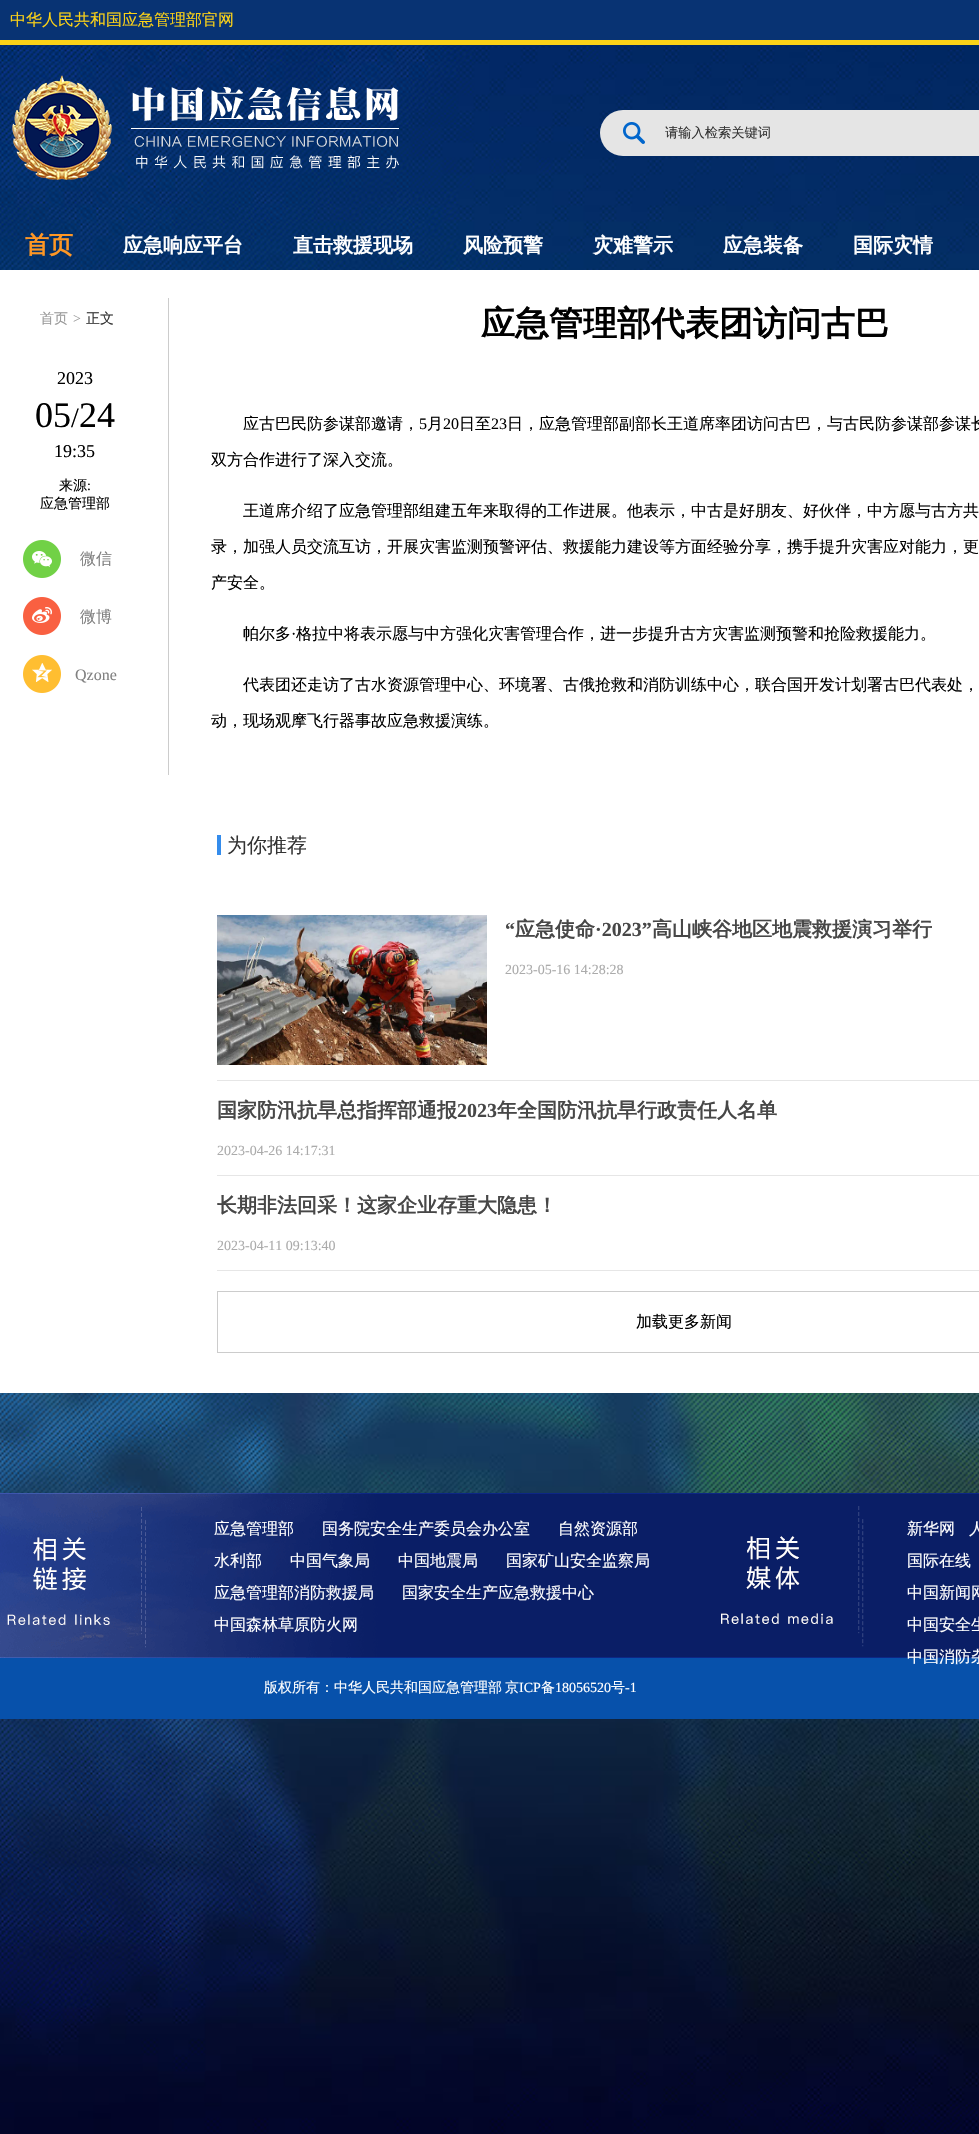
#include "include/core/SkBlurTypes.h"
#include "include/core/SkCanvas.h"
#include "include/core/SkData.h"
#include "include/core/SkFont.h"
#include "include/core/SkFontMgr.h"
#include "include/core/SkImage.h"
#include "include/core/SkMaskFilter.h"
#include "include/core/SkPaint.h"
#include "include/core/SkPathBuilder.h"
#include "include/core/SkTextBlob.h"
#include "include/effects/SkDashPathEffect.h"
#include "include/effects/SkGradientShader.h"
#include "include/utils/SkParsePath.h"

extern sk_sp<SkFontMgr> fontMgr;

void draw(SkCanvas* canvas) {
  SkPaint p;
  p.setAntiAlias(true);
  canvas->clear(SK_ColorWHITE);
  canvas->drawImageRect(SkImages::DeferredFromEncodedData(SkData::MakeFromFileName("images/1.png")), SkRect::MakeLTRB(0, 45, 979, 2134), SkSamplingOptions());
  p.setColor(SkColorSetRGB(8, 51, 115));
  canvas->drawRect(SkRect::MakeLTRB(0, 0, 979, 40), p);
  p.setColor(SkColorSetRGB(252, 210, 23));
  canvas->drawRect(SkRect::MakeLTRB(0, 40, 979, 45), p);
  canvas->drawImageRect(SkImages::DeferredFromEncodedData(SkData::MakeFromFileName("images/2.png")), SkRect::MakeLTRB(12, 75, 399, 180), SkSamplingOptions());
  p.setColor(SkColorSetRGB(229, 229, 229));
  canvas->drawRoundRect(SkRect::MakeLTRB(600, 110, 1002, 156), 23, 23, p);
  canvas->drawImageRect(SkImages::DeferredFromEncodedData(SkData::MakeFromFileName("images/3.png")), SkRect::MakeLTRB(623, 122, 645, 144), SkSamplingOptions());
  p.setColor(SK_ColorWHITE);
  canvas->drawRect(SkRect::MakeLTRB(0, 270, 979, 1393), p);
  p.setColor(SkColorSetRGB(204, 204, 204));
  canvas->drawRect(SkRect::MakeLTRB(168, 298, 169, 775), p);
  p.setColor(SkColorSetRGB(52, 140, 236));
  canvas->drawRect(SkRect::MakeLTRB(217, 835, 221, 855), p);
  p.setColor(SkColorSetRGB(230, 230, 230));
  canvas->drawRect(SkRect::MakeLTRB(217, 1080, 979, 1081), p);
  canvas->drawImageRect(SkImages::DeferredFromEncodedData(SkData::MakeFromFileName("images/4.png")), SkRect::MakeLTRB(217, 915, 487, 1065), SkSamplingOptions());
  canvas->drawRect(SkRect::MakeLTRB(217, 1175, 979, 1176), p);
  canvas->drawRect(SkRect::MakeLTRB(217, 1270, 979, 1271), p);
  p.setStyle(SkPaint::kStroke_Style);
  p.setStrokeWidth(1);
  p.setColor(SkColorSetRGB(204, 204, 204));
  canvas->drawRect(SkRect::MakeLTRB(217.5f, 1291.5f, 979.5f, 1352.5f), p);
  canvas->drawImageRect(SkImages::DeferredFromEncodedData(SkData::MakeFromFileName("images/5.png")), SkRect::MakeLTRB(23, 540, 61, 578), SkSamplingOptions());
  canvas->drawImageRect(SkImages::DeferredFromEncodedData(SkData::MakeFromFileName("images/6.png")), SkRect::MakeLTRB(23, 597, 61, 635), SkSamplingOptions());
  canvas->drawImageRect(SkImages::DeferredFromEncodedData(SkData::MakeFromFileName("images/7.png")), SkRect::MakeLTRB(23, 655, 61, 693), SkSamplingOptions());
  p.setStyle(SkPaint::kFill_Style);
  p.setColor(SkColorSetRGB(7, 81, 171));
  canvas->drawRect(SkRect::MakeLTRB(0, 1658, 979, 1719), p);
  canvas->drawImageRect(SkImages::DeferredFromEncodedData(SkData::MakeFromFileName("images/8.png")), SkRect::MakeLTRB(0, 1493, 979, 1658), SkSamplingOptions());
  SkFont font1(fontMgr->matchFamilyStyle("WenQuanYi Zen Hei", SkFontStyle(500, SkFontStyle::kNormal_Width, SkFontStyle::kUpright_Slant)), 16);
  font1.setSubpixel(true);
  p.setColor(SkColorSetRGB(252, 210, 23));
  canvas->drawString("中华人民共和国应急管理部官网", 10, 25, font1, p);
  SkFont font2(fontMgr->matchFamilyStyle("WenQuanYi Zen Hei", SkFontStyle(500, SkFontStyle::kNormal_Width, SkFontStyle::kUpright_Slant)), 13.25f);
  font2.setSubpixel(true);
  p.setColor(SkColorSetRGB(51, 51, 51));
  canvas->drawString("请输入检索关键词", 665, 137, font2, p);
  SkFont font3(fontMgr->matchFamilyStyle("WenQuanYi Zen Hei", SkFontStyle::Bold()), 24);
  font3.setSubpixel(true);
  p.setColor(SkColorSetRGB(255, 151, 36));
  canvas->drawString("首页", 25, 253, font3, p);
  SkFont font4(fontMgr->matchFamilyStyle("WenQuanYi Zen Hei", SkFontStyle::Bold()), 20);
  font4.setSubpixel(true);
  p.setColor(SK_ColorWHITE);
  canvas->drawString("应急响应平台", 123, 252, font4, p);
  canvas->drawString("直击救援现场", 293, 252, font4, p);
  canvas->drawString("风险预警", 463, 252, font4, p);
  canvas->drawString("灾难警示", 593, 252, font4, p);
  canvas->drawString("应急装备", 723, 252, font4, p);
  canvas->drawString("国际灾情", 853, 252, font4, p);
  SkFont font5(fontMgr->matchFamilyStyle("WenQuanYi Zen Hei", SkFontStyle(500, SkFontStyle::kNormal_Width, SkFontStyle::kUpright_Slant)), 14);
  font5.setSubpixel(true);
  p.setColor(SkColorSetRGB(153, 153, 153));
  canvas->drawString("首页", 40, 323, font5, p);
  SkFont font6(fontMgr->matchFamilyStyle("Liberation Serif", SkFontStyle::Normal()), 14);
  font6.setSubpixel(true);
  canvas->drawString(">", 73, 323, font6, p);
  p.setColor(SkColorSetRGB(51, 51, 51));
  canvas->drawString("正文", 86, 323, font5, p);
  SkFont font7(fontMgr->matchFamilyStyle("WenQuanYi Zen Hei", SkFontStyle::Bold()), 34);
  font7.setSubpixel(true);
  p.setColor(SK_ColorBLACK);
  canvas->drawString("应急管理部代表团访问古巴", 481, 335, font7, p);
  canvas->drawString("应古巴民防参谋部邀请，", 243, 429, font1, p);
  SkFont font8(fontMgr->matchFamilyStyle("Liberation Serif", SkFontStyle::Normal()), 16);
  font8.setSubpixel(true);
  canvas->drawString("5", 419, 429, font8, p);
  canvas->drawString("月", 427, 429, font1, p);
  canvas->drawString("20", 443, 429, font8, p);
  canvas->drawString("日至", 459, 429, font1, p);
  canvas->drawString("23", 491, 429, font8, p);
  canvas->drawString("日，应急管理部副部长王道席率团访问古巴，与古民防参谋部参谋长", 507, 429, font1, p);
  canvas->drawString("双方合作进行了深入交流。", 211, 465, font1, p);
  canvas->drawString("王道席介绍了应急管理部组建五年来取得的工作进展。他表示，中古是好朋友、好伙伴，中方愿与古方共", 243, 516, font1, p);
  canvas->drawString("录，加强人员交流互访，开展灾害监测预警评估、救援能力建设等方面经验分享，携手提升灾害应对能力，更", 211, 552, font1, p);
  canvas->drawString("产安全。", 211, 588, font1, p);
  canvas->drawString("帕尔多", 243, 639, font1, p);
  canvas->drawString("·", 291, 639, font8, p);
  canvas->drawString("格拉中将表示愿与中方强化灾害管理合作，进一步提升古方灾害监测预警和抢险救援能力。", 296, 639, font1, p);
  canvas->drawString("代表团还走访了古水资源管理中心、环境署、古俄抢救和消防训练中心，联合国开发计划署古巴代表处，", 243, 690, font1, p);
  canvas->drawString("动，现场观摩飞行器事故应急救援演练。", 211, 726, font1, p);
  SkFont font9(fontMgr->matchFamilyStyle("WenQuanYi Zen Hei", SkFontStyle(500, SkFontStyle::kNormal_Width, SkFontStyle::kUpright_Slant)), 20);
  font9.setSubpixel(true);
  p.setColor(SkColorSetRGB(51, 51, 51));
  canvas->drawString("为你推荐", 227, 852, font9, p);
  SkFont font10(fontMgr->matchFamilyStyle("Liberation Serif", SkFontStyle::Bold()), 20);
  font10.setSubpixel(true);
  p.setColor(SkColorSetRGB(71, 71, 71));
  canvas->drawString("“", 505, 936, font10, p);
  canvas->drawString("应急使命", 515, 936, font4, p);
  canvas->drawString("·2023”", 595, 936, font10, p);
  canvas->drawString("高山峡谷地区地震救援演习举行", 652, 936, font4, p);
  p.setColor(SkColorSetRGB(171, 171, 171));
  canvas->drawString("2023-05-16 14:28:28", 505, 974, font6, p);
  p.setColor(SkColorSetRGB(71, 71, 71));
  canvas->drawString("国家防汛抗旱总指挥部通报", 217, 1117, font4, p);
  canvas->drawString("2023", 457, 1117, font10, p);
  canvas->drawString("年全国防汛抗旱行政责任人名单", 497, 1117, font4, p);
  p.setColor(SkColorSetRGB(171, 171, 171));
  canvas->drawString("2023-04-26 14:17:31", 217, 1155, font6, p);
  p.setColor(SkColorSetRGB(71, 71, 71));
  canvas->drawString("长期非法回采！这家企业存重大隐患！", 217, 1212, font4, p);
  p.setColor(SkColorSetRGB(171, 171, 171));
  canvas->drawString("2023-04-11 09:13:40", 217, 1250, font6, p);
  p.setColor(SK_ColorBLACK);
  canvas->drawString("加载更多新闻", 636, 1327, font1, p);
  SkFont font11(fontMgr->matchFamilyStyle("Liberation Serif", SkFontStyle::Normal()), 18);
  font11.setSubpixel(true);
  canvas->drawString("2023", 57, 384, font11, p);
  SkFont font12(fontMgr->matchFamilyStyle("Liberation Serif", SkFontStyle::Normal()), 36);
  font12.setSubpixel(true);
  canvas->drawString("05", 35, 427, font12, p);
  SkFont font13(fontMgr->matchFamilyStyle("Liberation Serif", SkFontStyle::Normal()), 28);
  font13.setSubpixel(true);
  canvas->drawString("/", 71, 427, font13, p);
  canvas->drawString("24", 79, 427, font12, p);
  canvas->drawString("19:35", 54, 457, font11, p);
  canvas->drawString("来源", 59, 490, font5, p);
  canvas->drawString(":", 87, 490, font6, p);
  canvas->drawString("应急管理部", 40, 508, font5, p);
  p.setColor(SkColorSetRGB(128, 128, 128));
  canvas->drawString("微信", 80, 564, font1, p);
  canvas->drawString("微博", 80, 622, font1, p);
  canvas->drawString("Qzone", 75, 680, font8, p);
  p.setColor(SK_ColorWHITE);
  canvas->drawString("应急管理部", 214, 1534, font1, p);
  canvas->drawString("国务院安全生产委员会办公室", 322, 1534, font1, p);
  canvas->drawString("自然资源部", 558, 1534, font1, p);
  canvas->drawString("水利部", 214, 1566, font1, p);
  canvas->drawString("中国气象局", 290, 1566, font1, p);
  canvas->drawString("中国地震局", 398, 1566, font1, p);
  canvas->drawString("国家矿山安全监察局", 506, 1566, font1, p);
  canvas->drawString("应急管理部消防救援局", 214, 1598, font1, p);
  canvas->drawString("国家安全生产应急救援中心", 402, 1598, font1, p);
  canvas->drawString("中国森林草原防火网", 214, 1630, font1, p);
  canvas->drawString("新华网", 907, 1534, font1, p);
  canvas->drawString("人", 969, 1534, font1, p);
  canvas->drawString("国际在线", 907, 1566, font1, p);
  canvas->drawString("中国新闻网", 907, 1598, font1, p);
  canvas->drawString("中国安全生", 907, 1630, font1, p);
  canvas->drawString("中国消防杂", 907, 1662, font1, p);
  canvas->drawString("版权所有：中华人民共和国应急管理部", 264, 1692, font5, p);
  canvas->drawString("京", 505, 1692, font5, p);
  canvas->drawString("ICP", 519, 1692, font6, p);
  canvas->drawString("备", 541, 1692, font5, p);
  canvas->drawString("18056520", 555, 1692, font6, p);
  canvas->drawString("号", 611, 1692, font5, p);
  canvas->drawString("-1", 625, 1692, font6, p);
}
